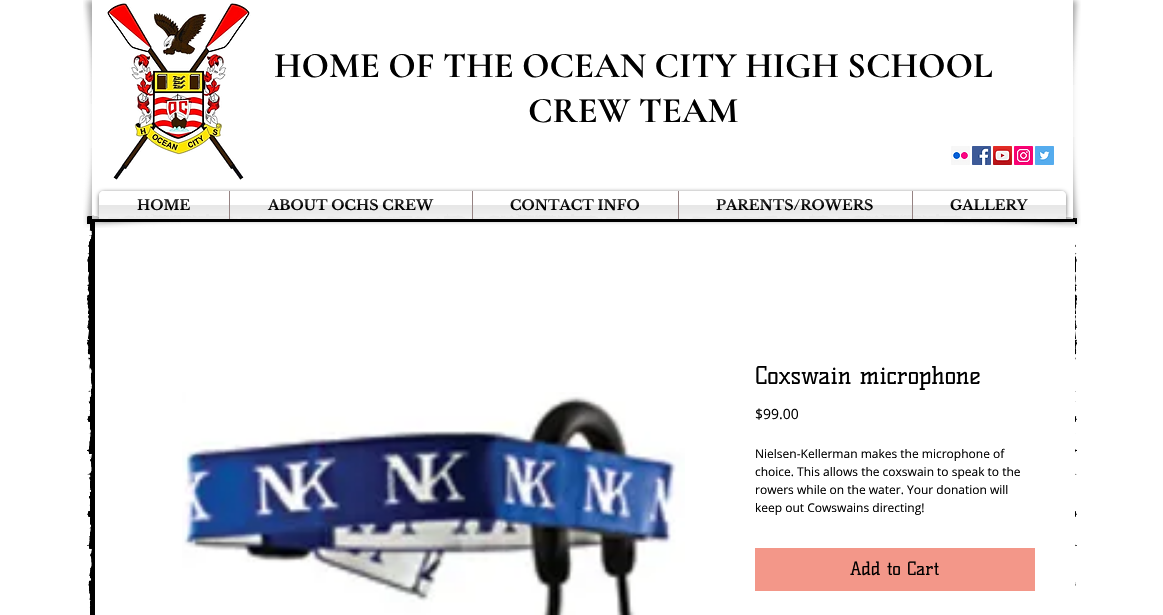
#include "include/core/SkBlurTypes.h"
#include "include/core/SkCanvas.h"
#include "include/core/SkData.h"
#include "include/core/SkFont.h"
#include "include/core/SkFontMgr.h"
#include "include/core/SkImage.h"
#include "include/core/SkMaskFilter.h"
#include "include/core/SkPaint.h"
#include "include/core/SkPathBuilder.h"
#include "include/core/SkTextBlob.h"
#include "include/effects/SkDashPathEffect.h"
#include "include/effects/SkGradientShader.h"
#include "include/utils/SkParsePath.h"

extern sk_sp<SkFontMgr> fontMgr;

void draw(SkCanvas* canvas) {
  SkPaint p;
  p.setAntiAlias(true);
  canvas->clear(SK_ColorWHITE);
  canvas->drawImageRect(SkImages::DeferredFromEncodedData(SkData::MakeFromFileName("images/1.png")), SkRect::MakeLTRB(83, 0, 92, 104), SkSamplingOptions());
  canvas->drawImageRect(SkImages::DeferredFromEncodedData(SkData::MakeFromFileName("images/2.png")), SkRect::MakeLTRB(1073, 0, 1081, 85), SkSamplingOptions());
  canvas->drawImageRect(SkImages::DeferredFromEncodedData(SkData::MakeFromFileName("images/17.png")), SkRect::MakeLTRB(87, 214, 1077, 224), SkSamplingOptions());
  canvas->drawImageRect(SkImages::DeferredFromEncodedData(SkData::MakeFromFileName("images/18.png")), SkRect::MakeLTRB(87, 224, 95, 615), SkSamplingOptions());
  p.setColor(SK_ColorWHITE);
  canvas->drawRect(SkRect::MakeLTRB(95, 222, 1075, 224), p);
  canvas->drawImageRect(SkImages::DeferredFromEncodedData(SkData::MakeFromFileName("images/15.png")), SkRect::MakeLTRB(83, 148, 181, 228), SkSamplingOptions());
  canvas->drawImageRect(SkImages::DeferredFromEncodedData(SkData::MakeFromFileName("images/16.png")), SkRect::MakeLTRB(944, 137, 1081, 228), SkSamplingOptions());
  canvas->save();
  canvas->clipPath(SkPathBuilder(SkPathFillType::kEvenOdd).moveTo(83, 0).lineTo(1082, 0).lineTo(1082, 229).lineTo(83, 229).close().moveTo(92, 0).lineTo(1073, 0).lineTo(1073, 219).lineTo(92, 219).close().detach(), true);
  p.setColor(SkColorSetARGB(26, 0, 0, 0));
  p.setMaskFilter(SkMaskFilter::MakeBlur(kNormal_SkBlurStyle, 2.5f));
  canvas->drawRect(SkRect::MakeLTRB(92, 1, 1073, 220), p);
  p.setMaskFilter(nullptr);
  canvas->restore();
  p.setColor(SkColorSetARGB(201, 255, 255, 255));
  canvas->drawRect(SkRect::MakeLTRB(92, 214, 1073, 219), p);
  canvas->drawImageRect(SkImages::DeferredFromEncodedData(SkData::MakeFromFileName("images/3.png")), SkRect::MakeLTRB(106, 3, 251, 180), SkSamplingOptions());
  canvas->drawImageRect(SkImages::DeferredFromEncodedData(SkData::MakeFromFileName("images/4.png")), SkRect::MakeLTRB(951, 146, 970, 165), SkSamplingOptions());
  canvas->drawImageRect(SkImages::DeferredFromEncodedData(SkData::MakeFromFileName("images/5.png")), SkRect::MakeLTRB(972, 146, 991, 165), SkSamplingOptions());
  canvas->drawImageRect(SkImages::DeferredFromEncodedData(SkData::MakeFromFileName("images/6.png")), SkRect::MakeLTRB(993, 146, 1012, 165), SkSamplingOptions());
  canvas->drawImageRect(SkImages::DeferredFromEncodedData(SkData::MakeFromFileName("images/7.png")), SkRect::MakeLTRB(1014, 146, 1033, 165), SkSamplingOptions());
  canvas->drawImageRect(SkImages::DeferredFromEncodedData(SkData::MakeFromFileName("images/8.png")), SkRect::MakeLTRB(1035, 146, 1054, 165), SkSamplingOptions());
  canvas->save();
  canvas->clipPath(SkPathBuilder(SkPathFillType::kEvenOdd).moveTo(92, 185).lineTo(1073, 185).lineTo(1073, 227).lineTo(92, 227).close().moveTo(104, 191).lineTo(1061, 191).cubicTo(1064, 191, 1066, 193, 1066, 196).lineTo(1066, 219).lineTo(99, 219).lineTo(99, 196).cubicTo(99, 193, 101, 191, 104, 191).close().detach(), true);
  p.setColor(SkColorSetARGB(153, 0, 0, 0));
  p.setMaskFilter(SkMaskFilter::MakeBlur(kNormal_SkBlurStyle, 2));
  canvas->drawRoundRect(SkRect::MakeLTRB(99, 192, 1066, 220), 5, 5, p);
  p.setMaskFilter(nullptr);
  canvas->restore();
  p.setColor(SkColorSetARGB(168, 255, 255, 255));
  canvas->drawPath(SkPathBuilder().moveTo(104, 191).lineTo(1061, 191).cubicTo(1064, 191, 1066, 193, 1066, 196).lineTo(1066, 219).lineTo(99, 219).lineTo(99, 196).cubicTo(99, 193, 101, 191, 104, 191).close().detach(), p);
  canvas->drawImageRect(SkImages::DeferredFromEncodedData(SkData::MakeFromFileName("images/9.png")), SkRect::MakeLTRB(99, 205, 1066, 219), SkSamplingOptions());
  canvas->drawPath(SkPathBuilder().moveTo(104, 191).lineTo(229, 191).lineTo(229, 219).lineTo(99, 219).lineTo(99, 196).cubicTo(99, 193, 101, 191, 104, 191).close().detach(), p);
  canvas->drawRect(SkRect::MakeLTRB(230, 205, 472, 219), p);
  p.setColor(SkColorSetRGB(150, 131, 131));
  canvas->drawRect(SkRect::MakeLTRB(229, 191, 230, 219), p);
  p.setColor(SkColorSetARGB(168, 255, 255, 255));
  canvas->drawRect(SkRect::MakeLTRB(473, 205, 678, 219), p);
  p.setColor(SkColorSetRGB(150, 131, 131));
  canvas->drawRect(SkRect::MakeLTRB(472, 191, 473, 219), p);
  p.setColor(SkColorSetARGB(168, 255, 255, 255));
  canvas->drawRect(SkRect::MakeLTRB(679, 205, 912, 219), p);
  p.setColor(SkColorSetRGB(150, 131, 131));
  canvas->drawRect(SkRect::MakeLTRB(678, 191, 679, 219), p);
  p.setColor(SkColorSetARGB(168, 255, 255, 255));
  canvas->drawPath(SkPathBuilder().moveTo(912, 191).lineTo(1061, 191).cubicTo(1064, 191, 1066, 193, 1066, 196).lineTo(1066, 219).lineTo(912, 219).close().detach(), p);
  p.setColor(SkColorSetRGB(150, 131, 131));
  canvas->drawRect(SkRect::MakeLTRB(912, 191, 913, 219), p);
  canvas->drawImageRect(SkImages::DeferredFromEncodedData(SkData::MakeFromFileName("images/19.png")), SkRect::MakeLTRB(1075, 244, 1077, 586), SkSamplingOptions());
  canvas->drawImageRect(SkImages::DeferredFromEncodedData(SkData::MakeFromFileName("images/20.png")), SkRect::MakeLTRB(182, 392, 685, 615), SkSamplingOptions());
  p.setColor(SkColorSetRGB(243, 151, 137));
  canvas->drawRect(SkRect::MakeLTRB(755, 548, 1035, 591), p);
  SkFont font1(fontMgr->matchFamilyStyle("Cormorant Garamond", SkFontStyle::Bold()), 36);
  font1.setSubpixel(true);
  p.setColor(SK_ColorBLACK);
  canvas->drawString("HOME OF THE OCEAN CITY HIGH SCHOOL", 274, 77, font1, p);
  canvas->drawString("CREW TEAM", 528, 122, font1, p);
  SkFont font2(fontMgr->matchFamilyStyle("Libre Baskerville", SkFontStyle::Bold()), 14);
  font2.setSubpixel(true);
  canvas->drawString("HOME", 137, 210, font2, p);
  canvas->drawImageRect(SkImages::DeferredFromEncodedData(SkData::MakeFromFileName("images/10.png")), SkRect::MakeLTRB(99, 199, 229, 219), SkSamplingOptions());
  canvas->drawString("ABOUT OCHS CREW", 268, 210, font2, p);
  canvas->drawImageRect(SkImages::DeferredFromEncodedData(SkData::MakeFromFileName("images/11.png")), SkRect::MakeLTRB(230, 199, 472, 219), SkSamplingOptions());
  canvas->drawString("CONTACT INFO", 510, 210, font2, p);
  canvas->drawImageRect(SkImages::DeferredFromEncodedData(SkData::MakeFromFileName("images/12.png")), SkRect::MakeLTRB(473, 199, 678, 219), SkSamplingOptions());
  canvas->drawString("PARENTS/ROWERS", 716, 210, font2, p);
  canvas->drawImageRect(SkImages::DeferredFromEncodedData(SkData::MakeFromFileName("images/13.png")), SkRect::MakeLTRB(679, 199, 912, 219), SkSamplingOptions());
  canvas->drawString("GALLERY", 950, 210, font2, p);
  canvas->drawImageRect(SkImages::DeferredFromEncodedData(SkData::MakeFromFileName("images/14.png")), SkRect::MakeLTRB(913, 199, 1066, 219), SkSamplingOptions());
  SkFont font3(fontMgr->matchFamilyStyle("Kelly Slab", SkFontStyle::Normal()), 24);
  font3.setSubpixel(true);
  canvas->drawString("Coxswain microphone", 755, 384, font3, p);
  SkFont font4(fontMgr->matchFamilyStyle("Open Sans", SkFontStyle::Normal()), 14);
  font4.setSubpixel(true);
  canvas->drawString("$99.00", 755, 419, font4, p);
  SkFont font5(fontMgr->matchFamilyStyle("Open Sans", SkFontStyle::Normal()), 12);
  font5.setSubpixel(true);
  canvas->drawString("Nielsen-Kellerman makes the microphone of", 755, 458, font5, p);
  canvas->drawString("choice. This allows the coxswain to speak to the", 755, 476, font5, p);
  canvas->drawString("rowers while on the water. Your donation will", 755, 494, font5, p);
  canvas->drawString("keep out Cowswains directing!", 755, 512, font5, p);
  SkFont font6(fontMgr->matchFamilyStyle("Kelly Slab", SkFontStyle::Normal()), 18);
  font6.setSubpixel(true);
  canvas->drawString("Add to Cart", 850, 575, font6, p);
}
